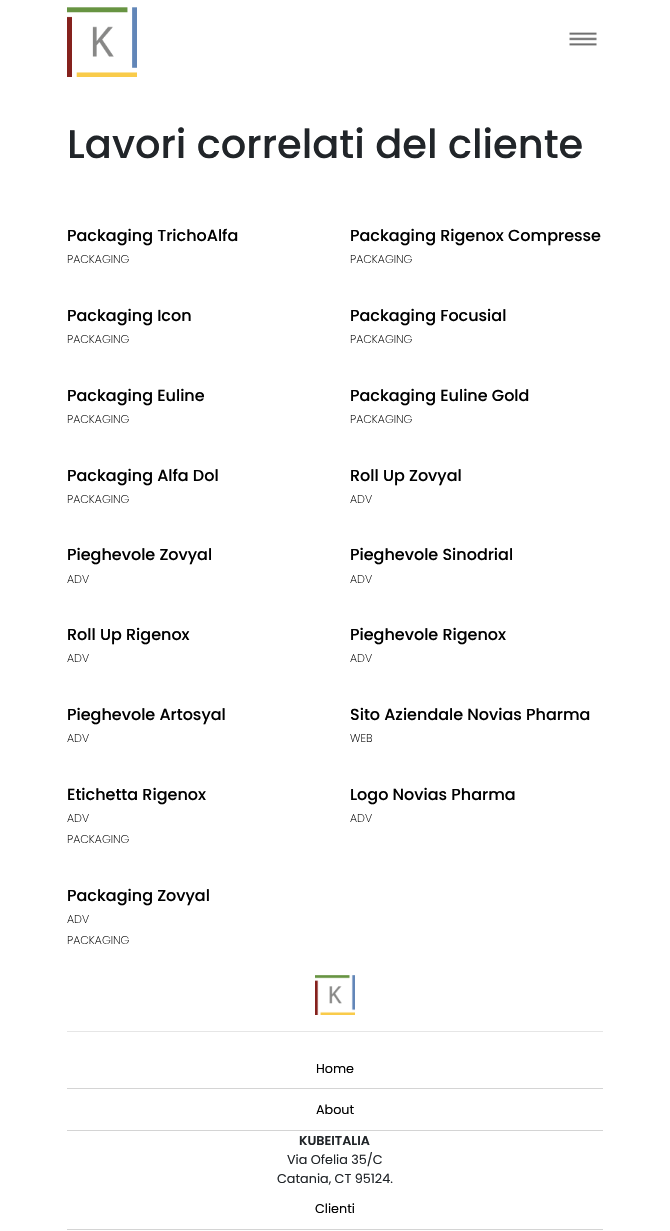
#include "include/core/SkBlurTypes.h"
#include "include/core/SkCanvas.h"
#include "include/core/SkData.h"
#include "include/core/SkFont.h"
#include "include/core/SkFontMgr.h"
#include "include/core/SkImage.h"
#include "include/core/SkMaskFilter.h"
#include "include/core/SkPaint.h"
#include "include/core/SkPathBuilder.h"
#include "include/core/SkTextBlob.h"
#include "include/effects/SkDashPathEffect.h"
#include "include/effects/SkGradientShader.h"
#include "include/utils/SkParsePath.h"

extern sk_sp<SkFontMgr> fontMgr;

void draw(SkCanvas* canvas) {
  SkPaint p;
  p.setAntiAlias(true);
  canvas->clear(SK_ColorWHITE);
  canvas->drawImageRect(SkImages::DeferredFromEncodedData(SkData::MakeFromFileName("images/1.png")), SkRect::MakeLTRB(67, 7, 137, 77), SkSamplingOptions());
  canvas->drawImageRect(SkImages::DeferredFromEncodedData(SkData::MakeFromFileName("images/2.png")), SkRect::MakeLTRB(569, 32, 597, 46), SkSamplingOptions());
  canvas->drawImageRect(SkImages::DeferredFromEncodedData(SkData::MakeFromFileName("images/3.png")), SkRect::MakeLTRB(315, 975, 355, 1015), SkSamplingOptions());
  p.setColor(SkColorSetRGB(230, 230, 230));
  canvas->drawRect(SkRect::MakeLTRB(67, 1031, 603, 1032), p);
  p.setColor(SkColorSetRGB(212, 212, 212));
  canvas->drawRect(SkRect::MakeLTRB(67, 1088, 603, 1089), p);
  canvas->drawRect(SkRect::MakeLTRB(67, 1130, 603, 1131), p);
  canvas->drawRect(SkRect::MakeLTRB(67, 1229, 603, 1230), p);
  SkFont font1(fontMgr->matchFamilyStyle("Poppins", SkFontStyle(500, SkFontStyle::kNormal_Width, SkFontStyle::kUpright_Slant)), 40);
  font1.setSubpixel(true);
  p.setColor(SkColorSetRGB(33, 37, 41));
  canvas->drawString("Lavori correlati del cliente", 67, 158, font1, p);
  SkFont font2(fontMgr->matchFamilyStyle("Poppins", SkFontStyle(500, SkFontStyle::kNormal_Width, SkFontStyle::kUpright_Slant)), 16);
  font2.setSubpixel(true);
  p.setColor(SK_ColorBLACK);
  canvas->drawString("Packaging TrichoAlfa", 67, 241, font2, p);
  SkFont font3(fontMgr->matchFamilyStyle("Poppins", SkFontStyle(200, SkFontStyle::kNormal_Width, SkFontStyle::kUpright_Slant)), 11.25f);
  font3.setSubpixel(true);
  canvas->drawString("PACKAGING", 67, 263, font3, p);
  canvas->drawString("Packaging Rigenox Compresse", 350, 241, font2, p);
  canvas->drawString("PACKAGING", 350, 263, font3, p);
  canvas->drawString("Packaging Icon", 67, 321, font2, p);
  canvas->drawString("PACKAGING", 67, 343, font3, p);
  canvas->drawString("Packaging Focusial", 350, 321, font2, p);
  canvas->drawString("PACKAGING", 350, 343, font3, p);
  canvas->drawString("Packaging Euline", 67, 401, font2, p);
  canvas->drawString("PACKAGING", 67, 423, font3, p);
  canvas->drawString("Packaging Euline Gold", 350, 401, font2, p);
  canvas->drawString("PACKAGING", 350, 423, font3, p);
  canvas->drawString("Packaging Alfa Dol", 67, 481, font2, p);
  canvas->drawString("PACKAGING", 67, 503, font3, p);
  canvas->drawString("Roll Up Zovyal", 350, 481, font2, p);
  canvas->drawString("ADV", 350, 503, font3, p);
  canvas->drawString("Pieghevole Zovyal", 67, 560, font2, p);
  canvas->drawString("ADV", 67, 583, font3, p);
  canvas->drawString("Pieghevole Sinodrial", 350, 560, font2, p);
  canvas->drawString("ADV", 350, 583, font3, p);
  canvas->drawString("Roll Up Rigenox", 67, 640, font2, p);
  canvas->drawString("ADV", 67, 662, font3, p);
  canvas->drawString("Pieghevole Rigenox", 350, 640, font2, p);
  canvas->drawString("ADV", 350, 662, font3, p);
  canvas->drawString("Pieghevole Artosyal", 67, 720, font2, p);
  canvas->drawString("ADV", 67, 742, font3, p);
  canvas->drawString("Sito Aziendale Novias Pharma", 350, 720, font2, p);
  canvas->drawString("WEB", 350, 742, font3, p);
  canvas->drawString("Etichetta Rigenox", 67, 800, font2, p);
  canvas->drawString("ADV", 67, 822, font3, p);
  canvas->drawString("PACKAGING", 67, 843, font3, p);
  canvas->drawString("Logo Novias Pharma", 350, 800, font2, p);
  canvas->drawString("ADV", 350, 822, font3, p);
  canvas->drawString("Packaging Zovyal", 67, 901, font2, p);
  canvas->drawString("ADV", 67, 923, font3, p);
  canvas->drawString("PACKAGING", 67, 944, font3, p);
  SkFont font4(fontMgr->matchFamilyStyle("Poppins", SkFontStyle::Normal()), 12.75f);
  font4.setSubpixel(true);
  canvas->drawString("Home", 316, 1073, font4, p);
  canvas->drawString("About", 316, 1114, font4, p);
  SkFont font5(fontMgr->matchFamilyStyle("Poppins", SkFontStyle(600, SkFontStyle::kNormal_Width, SkFontStyle::kUpright_Slant)), 12.75f);
  font5.setSubpixel(true);
  p.setColor(SkColorSetRGB(33, 37, 41));
  canvas->drawString("KUBEITALIA", 299, 1145, font5, p);
  canvas->drawString("Via Ofelia 35/C", 287, 1164, font4, p);
  canvas->drawString("Catania, CT 95124.", 277, 1183, font4, p);
  p.setColor(SK_ColorBLACK);
  canvas->drawString("Clienti", 315, 1213, font4, p);
}
